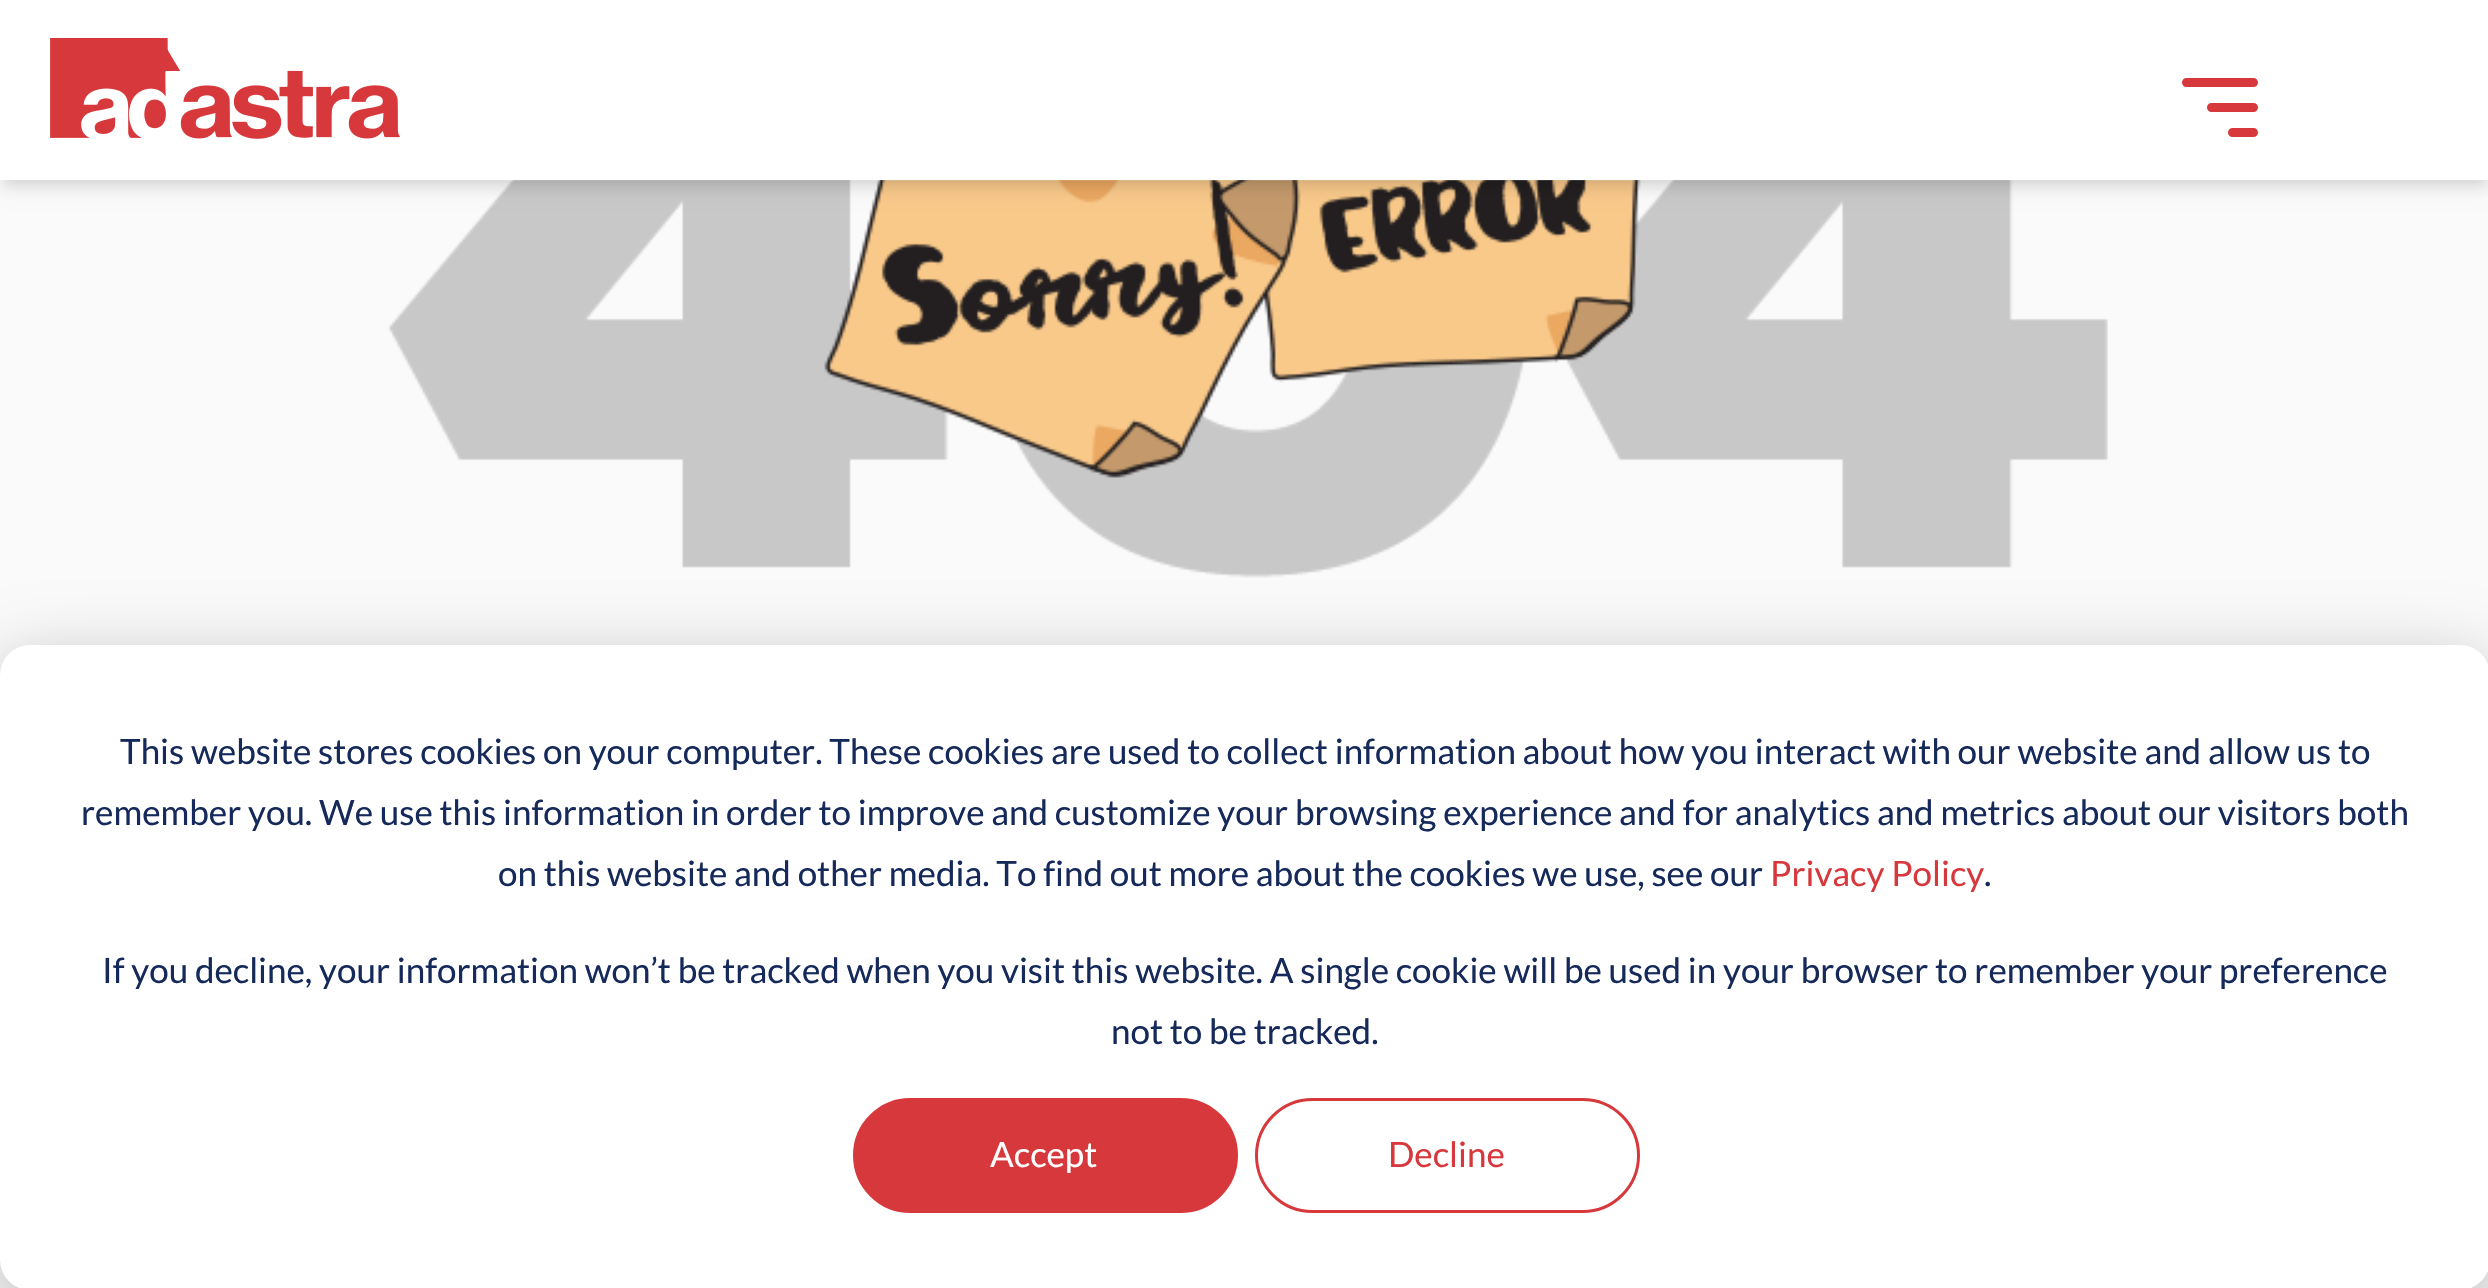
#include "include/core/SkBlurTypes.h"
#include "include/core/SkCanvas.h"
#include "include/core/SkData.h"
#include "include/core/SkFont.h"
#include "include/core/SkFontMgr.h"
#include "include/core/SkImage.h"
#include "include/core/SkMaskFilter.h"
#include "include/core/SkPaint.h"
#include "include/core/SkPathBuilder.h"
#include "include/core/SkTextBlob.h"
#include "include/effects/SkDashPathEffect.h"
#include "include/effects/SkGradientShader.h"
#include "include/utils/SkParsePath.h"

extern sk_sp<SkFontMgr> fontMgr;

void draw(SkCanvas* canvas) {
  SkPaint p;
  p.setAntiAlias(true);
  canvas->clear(SkColorSetRGB(250, 250, 250));
  canvas->drawImageRect(SkImages::DeferredFromEncodedData(SkData::MakeFromFileName("images/2.png")), SkRect::MakeLTRB(388, 180, 2108, 578), SkSamplingOptions());
  p.setColor(SkColorSetARGB(15, 0, 0, 0));
  p.setMaskFilter(SkMaskFilter::MakeBlur(kNormal_SkBlurStyle, 5));
  canvas->drawRect(SkRect::MakeLTRB(3, 8, 2488, 183), p);
  p.setMaskFilter(nullptr);
  p.setColor(SkColorSetARGB(26, 0, 0, 0));
  p.setMaskFilter(SkMaskFilter::MakeBlur(kNormal_SkBlurStyle, 7.5f));
  canvas->drawRect(SkRect::MakeLTRB(3, 13, 2488, 188), p);
  p.setMaskFilter(nullptr);
  p.setColor(SK_ColorWHITE);
  canvas->drawRect(SkRect::MakeLTRB(0, 0, 2488, 180), p);
  p.setColor(SkColorSetARGB(26, 255, 255, 255));
  canvas->drawRect(SkRect::MakeLTRB(0, 180, 2488, 181), p);
  canvas->drawImageRect(SkImages::DeferredFromEncodedData(SkData::MakeFromFileName("images/1.png")), SkRect::MakeLTRB(50, 38, 400, 139), SkSamplingOptions());
  p.setStyle(SkPaint::kStroke_Style);
  p.setStrokeWidth(9);
  p.setStrokeCap(SkPaint::kRound_Cap);
  p.setStrokeJoin(SkPaint::kRound_Join);
  p.setColor(SkColorSetRGB(215, 56, 60));
  canvas->drawPath(SkPathBuilder().moveTo(2253.5f, 82.5f).lineTo(2186.5f, 82.5f).moveTo(2253.5f, 107.5f).lineTo(2211.5f, 107.5f).moveTo(2253.5f, 132.5f).lineTo(2232.5f, 132.5f).detach(), p);
  p.setStyle(SkPaint::kFill_Style);
  p.setColor(SkColorSetARGB(71, 0, 0, 0));
  p.setMaskFilter(SkMaskFilter::MakeBlur(kNormal_SkBlurStyle, 35));
  canvas->drawRoundRect(SkRect::MakeLTRB(0, 665, 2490, 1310), 30, 30, p);
  p.setMaskFilter(nullptr);
  p.setColor(SK_ColorWHITE);
  canvas->drawRoundRect(SkRect::MakeLTRB(0, 645, 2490, 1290), 30, 30, p);
  p.setColor(SkColorSetRGB(215, 56, 60));
  canvas->drawRoundRect(SkRect::MakeLTRB(854.5f, 1099.5f, 1236.5f, 1211.5f), 56, 56, p);
  p.setStyle(SkPaint::kStroke_Style);
  p.setStrokeWidth(3);
  p.setStrokeCap(SkPaint::kButt_Cap);
  p.setStrokeJoin(SkPaint::kMiter_Join);
  canvas->drawRoundRect(SkRect::MakeLTRB(854.5f, 1099.5f, 1236.5f, 1211.5f), 56, 56, p);
  canvas->drawRoundRect(SkRect::MakeLTRB(1256.5f, 1099.5f, 1638.5f, 1211.5f), 56, 56, p);
  SkFont font1(fontMgr->matchFamilyStyle("Lato", SkFontStyle::Normal()), 35);
  font1.setSubpixel(true);
  p.setStyle(SkPaint::kFill_Style);
  p.setColor(SkColorSetRGB(21, 41, 90));
  canvas->drawString("This website stores cookies on your computer. These cookies are used to collect information about how you interact with our website and allow us to", 120, 764, font1, p);
  canvas->drawString("remember you. We use this information in order to improve and customize your browsing experience and for analytics and metrics about our visitors both", 81, 825, font1, p);
  canvas->drawString("on this website and other media. To find out more about the cookies we use, see our", 498, 886, font1, p);
  p.setColor(SkColorSetRGB(215, 56, 60));
  canvas->drawString("Privacy Policy", 1770, 886, font1, p);
  p.setColor(SkColorSetRGB(21, 41, 90));
  canvas->drawString(".", 1984, 886, font1, p);
  canvas->drawString("If you decline, your information won’t be tracked when you visit this website. A single cookie will be used in your browser to remember your preference", 102, 983, font1, p);
  canvas->drawString("not to be tracked.", 1111, 1044, font1, p);
  p.setColor(SK_ColorWHITE);
  canvas->drawString("Accept", 990, 1167, font1, p);
  p.setColor(SkColorSetRGB(215, 56, 60));
  canvas->drawString("Decline", 1388, 1167, font1, p);
}
